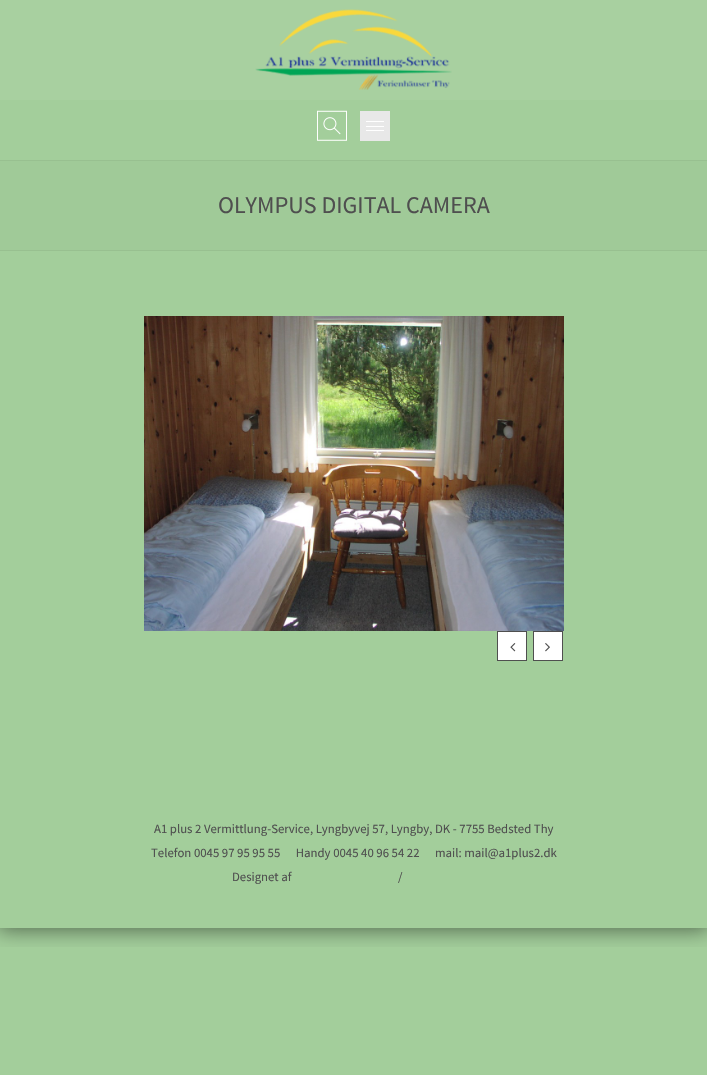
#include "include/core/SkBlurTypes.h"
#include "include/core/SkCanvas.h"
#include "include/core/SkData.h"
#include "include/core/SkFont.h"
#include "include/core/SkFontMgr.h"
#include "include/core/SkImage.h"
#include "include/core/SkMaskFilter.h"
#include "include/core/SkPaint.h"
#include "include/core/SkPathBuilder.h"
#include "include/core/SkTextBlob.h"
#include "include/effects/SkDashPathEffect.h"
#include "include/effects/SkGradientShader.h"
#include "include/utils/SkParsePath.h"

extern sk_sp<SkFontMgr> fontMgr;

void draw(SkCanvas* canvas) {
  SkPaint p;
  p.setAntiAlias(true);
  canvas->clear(SkColorSetRGB(163, 206, 155));
  canvas->save();
  canvas->clipRect(SkRect::MakeLTRB(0, 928, 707, 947));
  p.setColor(SkColorSetARGB(128, 0, 0, 0));
  p.setMaskFilter(SkMaskFilter::MakeBlur(kNormal_SkBlurStyle, 10));
  canvas->drawRect(SkRect::MakeLTRB(-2, -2, 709, 930), p);
  p.setMaskFilter(nullptr);
  canvas->restore();
  p.setColor(SkColorSetRGB(168, 208, 160));
  canvas->drawRect(SkRect::MakeLTRB(0, 0, 707, 100), p);
  canvas->drawImageRect(SkImages::DeferredFromEncodedData(SkData::MakeFromFileName("images/1.png")), SkRect::MakeLTRB(255, 9, 452, 90), SkSamplingOptions());
  canvas->drawImageRect(SkImages::DeferredFromEncodedData(SkData::MakeFromFileName("images/2.png")), SkRect::MakeLTRB(317, 110, 347, 141), SkSamplingOptions());
  p.setColor(SkColorSetRGB(232, 232, 232));
  canvas->drawRect(SkRect::MakeLTRB(360, 111, 390, 141), p);
  p.setColor(SK_ColorWHITE);
  canvas->drawRect(SkRect::MakeLTRB(366, 121, 384, 122), p);
  canvas->drawRect(SkRect::MakeLTRB(366, 126, 384, 127), p);
  canvas->drawRect(SkRect::MakeLTRB(366, 130, 384, 131), p);
  p.setColor(SkColorSetRGB(160, 202, 152));
  canvas->drawRect(SkRect::MakeLTRB(0, 161, 707, 250), p);
  p.setColor(SkColorSetRGB(152, 192, 144));
  canvas->drawRect(SkRect::MakeLTRB(0, 160, 707, 161), p);
  canvas->drawRect(SkRect::MakeLTRB(0, 250, 707, 251), p);
  canvas->drawImageRect(SkImages::DeferredFromEncodedData(SkData::MakeFromFileName("images/3.png")), SkRect::MakeLTRB(144, 316, 564, 631), SkSamplingOptions());
  p.setColor(SK_ColorWHITE);
  canvas->drawRect(SkRect::MakeLTRB(497.5f, 631.5f, 526.5f, 660.5f), p);
  p.setStyle(SkPaint::kStroke_Style);
  p.setStrokeWidth(1);
  p.setColor(SkColorSetRGB(79, 79, 79));
  canvas->drawRect(SkRect::MakeLTRB(497.5f, 631.5f, 526.5f, 660.5f), p);
  canvas->drawImageRect(SkImages::DeferredFromEncodedData(SkData::MakeFromFileName("images/4.png")), SkRect::MakeLTRB(510, 643, 516, 652), SkSamplingOptions());
  p.setStyle(SkPaint::kFill_Style);
  p.setColor(SK_ColorWHITE);
  canvas->drawRect(SkRect::MakeLTRB(533.5f, 631.5f, 562.5f, 660.5f), p);
  p.setStyle(SkPaint::kStroke_Style);
  p.setColor(SkColorSetRGB(79, 79, 79));
  canvas->drawRect(SkRect::MakeLTRB(533.5f, 631.5f, 562.5f, 660.5f), p);
  canvas->drawImageRect(SkImages::DeferredFromEncodedData(SkData::MakeFromFileName("images/5.png")), SkRect::MakeLTRB(545, 643, 550, 652), SkSamplingOptions());
  SkFont font1(fontMgr->matchFamilyStyle("Source Sans Pro", SkFontStyle::Normal()), 24);
  font1.setSubpixel(true);
  p.setStyle(SkPaint::kFill_Style);
  canvas->drawString("OLYMPUS DIGITAL CAMERA", 218, 213, font1, p);
  SkFont font2(fontMgr->matchFamilyStyle("Source Sans Pro", SkFontStyle::Normal()), 12.75f);
  font2.setSubpixel(true);
  canvas->drawString("A1 plus 2 Vermittlung-Service, Lyngbyvej 57, Lyngby, DK - 7755 Bedsted Thy", 154, 833, font2, p);
  canvas->drawString("Telefon 0045 97 95 95 55      Handy 0045 40 96 54 22      mail: mail@a1plus2.dk", 151, 857, font2, p);
  canvas->drawString("Designet af", 232, 881, font2, p);
  canvas->drawString("/", 398, 881, font2, p);
}
